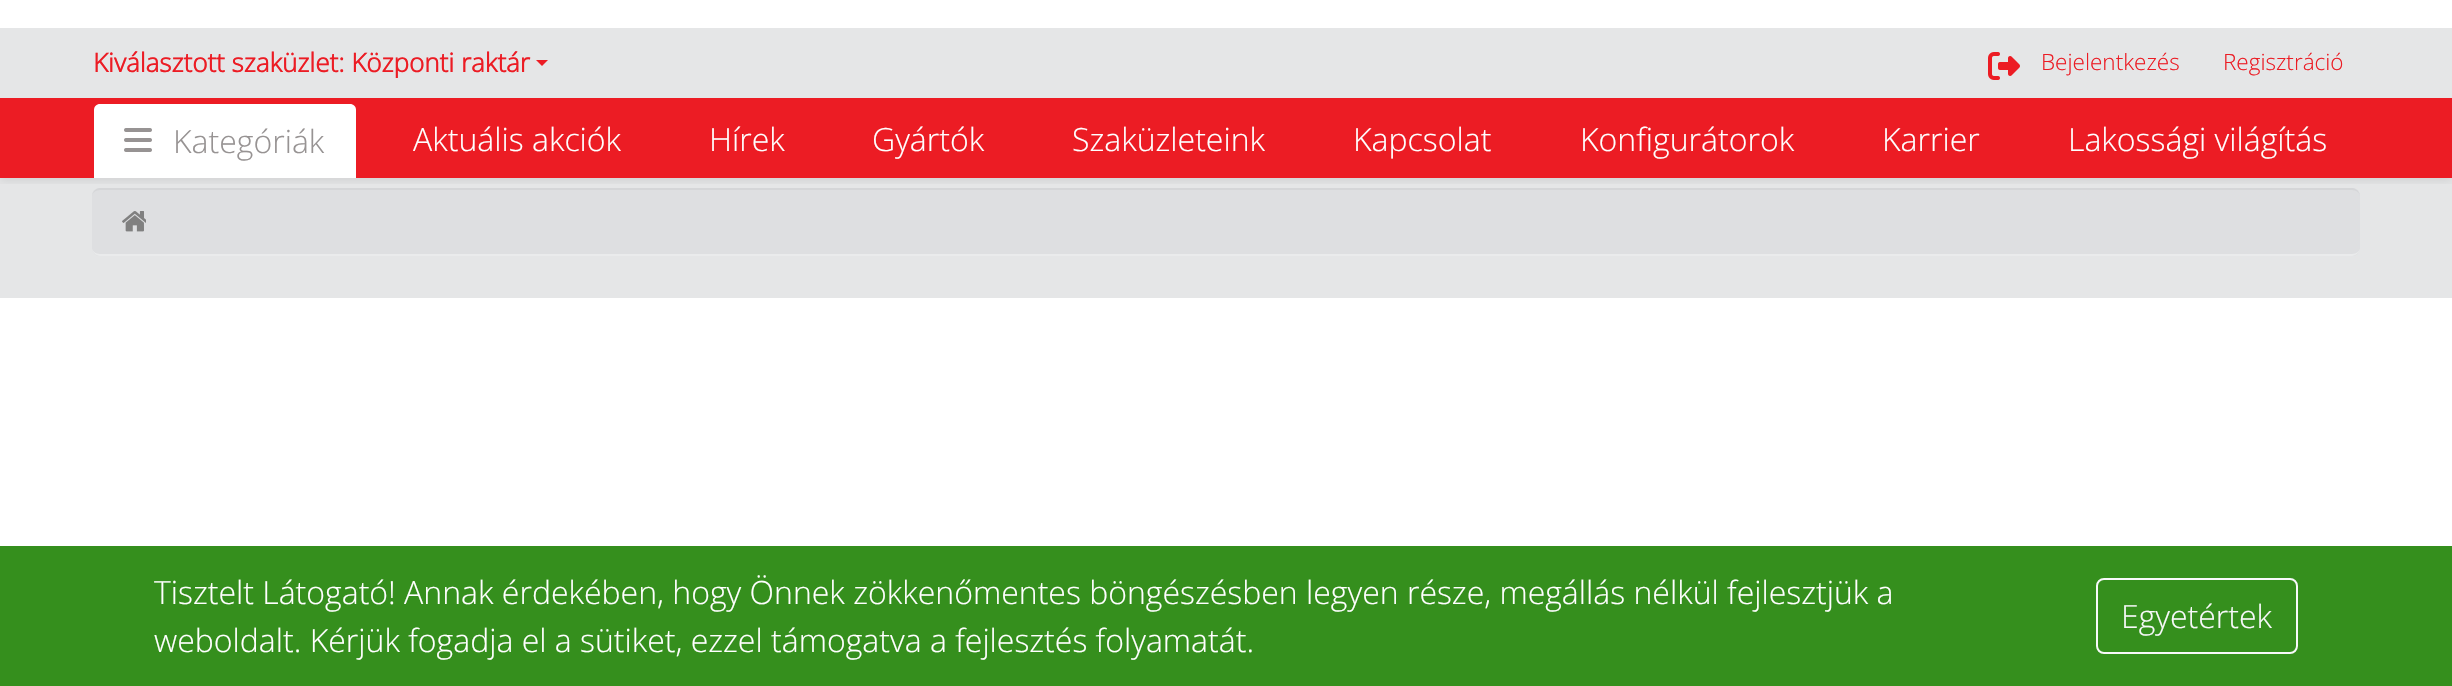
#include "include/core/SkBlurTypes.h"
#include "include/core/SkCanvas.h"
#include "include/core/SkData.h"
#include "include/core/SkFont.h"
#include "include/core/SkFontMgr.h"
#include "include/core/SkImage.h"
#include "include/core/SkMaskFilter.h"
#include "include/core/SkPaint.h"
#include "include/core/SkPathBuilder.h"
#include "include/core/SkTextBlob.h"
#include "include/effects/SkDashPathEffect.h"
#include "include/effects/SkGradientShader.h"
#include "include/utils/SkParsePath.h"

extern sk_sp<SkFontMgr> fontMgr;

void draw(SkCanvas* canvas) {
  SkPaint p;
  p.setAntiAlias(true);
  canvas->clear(SkColorSetRGB(229, 230, 231));
  p.setColor(SK_ColorWHITE);
  canvas->drawRect(SkRect::MakeLTRB(0, 0, 2452, 28), p);
  p.setColor(SkColorSetRGB(222, 223, 225));
  canvas->drawRoundRect(SkRect::MakeLTRB(92, 188, 2360, 256), 8, 8, p);
  p.setColor(SkColorSetRGB(213, 214, 216));
  canvas->drawPath(SkPathBuilder().moveTo(100, 188).cubicTo(96, 188, 92, 192, 92, 196).cubicTo(92, 193, 96, 190, 100, 190).lineTo(2352, 190).cubicTo(2356, 190, 2360, 193, 2360, 196).cubicTo(2360, 192, 2356, 188, 2352, 188).close().detach(), p);
  canvas->save();
  canvas->clipRect(SkRect::MakeLTRB(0, 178, 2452, 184));
  p.setColor(SkColorSetARGB(18, 0, 0, 0));
  p.setMaskFilter(SkMaskFilter::MakeBlur(kNormal_SkBlurStyle, 4));
  canvas->drawRect(SkRect::MakeLTRB(0, -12, 2452, 182), p);
  p.setMaskFilter(nullptr);
  canvas->restore();
  p.setColor(SkColorSetRGB(236, 28, 36));
  canvas->drawPath(SkPathBuilder().moveTo(536, 60).lineTo(548, 60).lineTo(542, 66).close().detach(), p);
  canvas->drawImageRect(SkImages::DeferredFromEncodedData(SkData::MakeFromFileName("images/1.png")), SkRect::MakeLTRB(1988, 52, 2020, 80), SkSamplingOptions());
  canvas->drawRect(SkRect::MakeLTRB(0, 98, 2452, 178), p);
  p.setColor(SK_ColorWHITE);
  canvas->drawPath(SkPathBuilder().moveTo(100, 104).lineTo(350, 104).cubicTo(353.5f, 104, 356, 106.5f, 356, 110).lineTo(356, 178).lineTo(94, 178).lineTo(94, 110).cubicTo(94, 106.5f, 96.5f, 104, 100, 104).close().detach(), p);
  canvas->drawImageRect(SkImages::DeferredFromEncodedData(SkData::MakeFromFileName("images/2.png")), SkRect::MakeLTRB(124, 128, 152, 152), SkSamplingOptions());
  p.setColor(SkColorSetRGB(234, 235, 236));
  canvas->drawPath(SkPathBuilder().moveTo(2352, 256).cubicTo(2356, 256, 2360, 252, 2360, 248).cubicTo(2360, 251, 2356, 254, 2352, 254).lineTo(100, 254).cubicTo(96, 254, 92, 251, 92, 248).cubicTo(92, 252, 96, 256, 100, 256).close().detach(), p);
  canvas->drawImageRect(SkImages::DeferredFromEncodedData(SkData::MakeFromFileName("images/3.png")), SkRect::MakeLTRB(122, 211, 146, 232), SkSamplingOptions());
  p.setColor(SK_ColorWHITE);
  canvas->drawRect(SkRect::MakeLTRB(0, 298, 2452, 546), p);
  p.setColor(SkColorSetRGB(53, 143, 29));
  canvas->drawRect(SkRect::MakeLTRB(0, 546, 2452, 686), p);
  p.setStyle(SkPaint::kStroke_Style);
  p.setStrokeWidth(2);
  p.setColor(SkColorSetRGB(248, 249, 250));
  canvas->drawRoundRect(SkRect::MakeLTRB(2097, 579, 2297, 653), 7, 7, p);
  SkFont font1(fontMgr->matchFamilyStyle("Open Sans", SkFontStyle::Bold()), 26);
  font1.setSubpixel(true);
  p.setStyle(SkPaint::kFill_Style);
  p.setColor(SkColorSetRGB(236, 28, 36));
  canvas->drawString("Kiválasztott szaküzlet: Központi raktár", 93, 72, font1, p);
  SkFont font2(fontMgr->matchFamilyStyle("Open Sans", SkFontStyle(300, SkFontStyle::kNormal_Width, SkFontStyle::kUpright_Slant)), 22.5f);
  font2.setSubpixel(true);
  canvas->drawString("Bejelentkezés", 2041, 70, font2, p);
  canvas->drawString("Regisztráció", 2223, 70, font2, p);
  SkFont font3(fontMgr->matchFamilyStyle("Open Sans", SkFontStyle(300, SkFontStyle::kNormal_Width, SkFontStyle::kUpright_Slant)), 32);
  font3.setSubpixel(true);
  p.setColor(SkColorSetRGB(151, 147, 147));
  canvas->drawString("Kategóriák", 173, 153, font3, p);
  p.setColor(SK_ColorWHITE);
  canvas->drawString("Aktuális akciók", 413, 151, font3, p);
  canvas->drawString("Hírek", 709, 151, font3, p);
  canvas->drawString("Gyártók", 872, 151, font3, p);
  canvas->drawString("Szaküzleteink", 1072, 151, font3, p);
  canvas->drawString("Kapcsolat", 1353, 151, font3, p);
  canvas->drawString("Konfigurátorok", 1580, 151, font3, p);
  canvas->drawString("Karrier", 1882, 151, font3, p);
  canvas->drawString("Lakossági világítás", 2068, 151, font3, p);
  canvas->drawString("Tisztelt Látogató! Annak érdekében, hogy Önnek zökkenőmentes böngészésben legyen része, megállás nélkül fejlesztjük a", 154, 604, font3, p);
  canvas->drawString("weboldalt. Kérjük fogadja el a sütiket, ezzel támogatva a fejlesztés folyamatát.", 154, 652, font3, p);
  p.setColor(SkColorSetRGB(248, 249, 250));
  canvas->drawString("Egyetértek", 2121, 628, font3, p);
}
